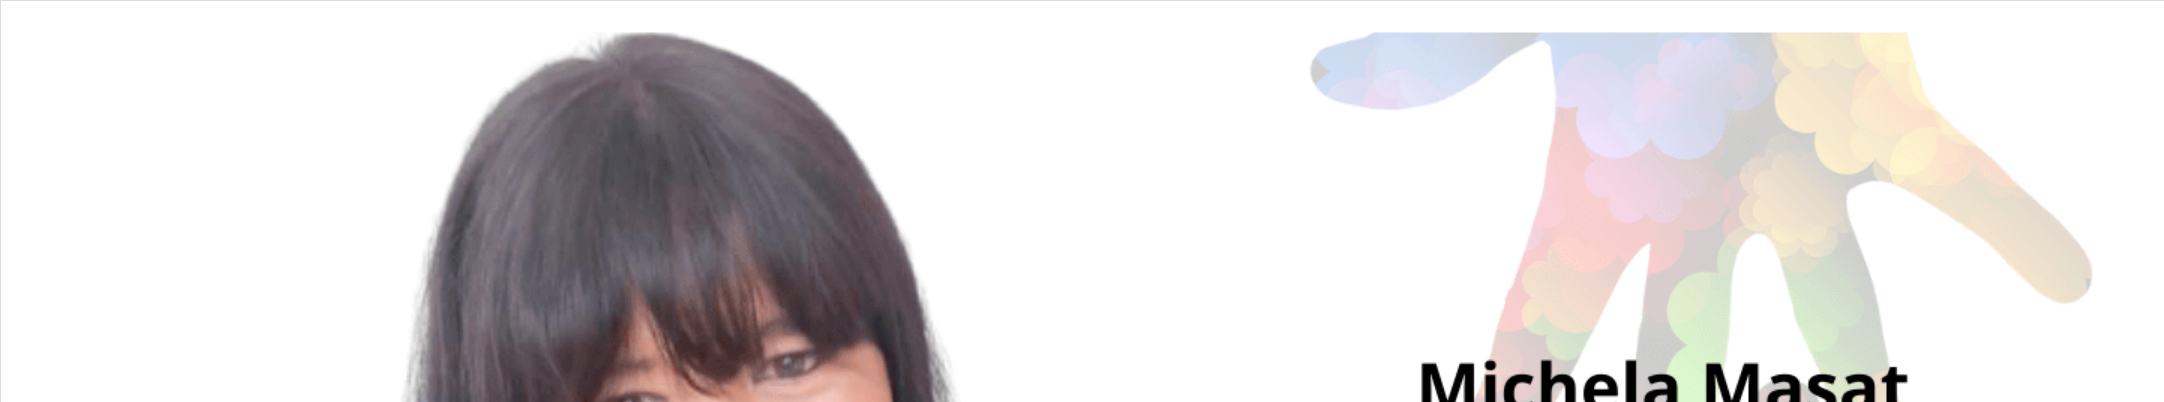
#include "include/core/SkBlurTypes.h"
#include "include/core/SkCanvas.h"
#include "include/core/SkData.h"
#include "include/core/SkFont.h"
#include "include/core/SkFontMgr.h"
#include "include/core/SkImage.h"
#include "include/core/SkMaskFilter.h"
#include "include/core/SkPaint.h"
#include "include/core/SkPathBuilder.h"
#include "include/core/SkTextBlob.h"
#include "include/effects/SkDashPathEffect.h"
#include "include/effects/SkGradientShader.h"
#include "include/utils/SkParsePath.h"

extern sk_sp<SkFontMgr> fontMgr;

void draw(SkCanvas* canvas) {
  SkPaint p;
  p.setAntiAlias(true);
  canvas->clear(SK_ColorWHITE);
  p.setStyle(SkPaint::kStroke_Style);
  p.setStrokeWidth(1);
  p.setColor(SkColorSetRGB(220, 220, 222));
  canvas->drawRect(SkRect::MakeLTRB(0.5f, 0.5f, 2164.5f, 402.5f), p);
  canvas->drawImageRect(SkImages::DeferredFromEncodedData(SkData::MakeFromFileName("images/1.png")), SkRect::MakeLTRB(400, 32, 2093, 402), SkSamplingOptions());
}
